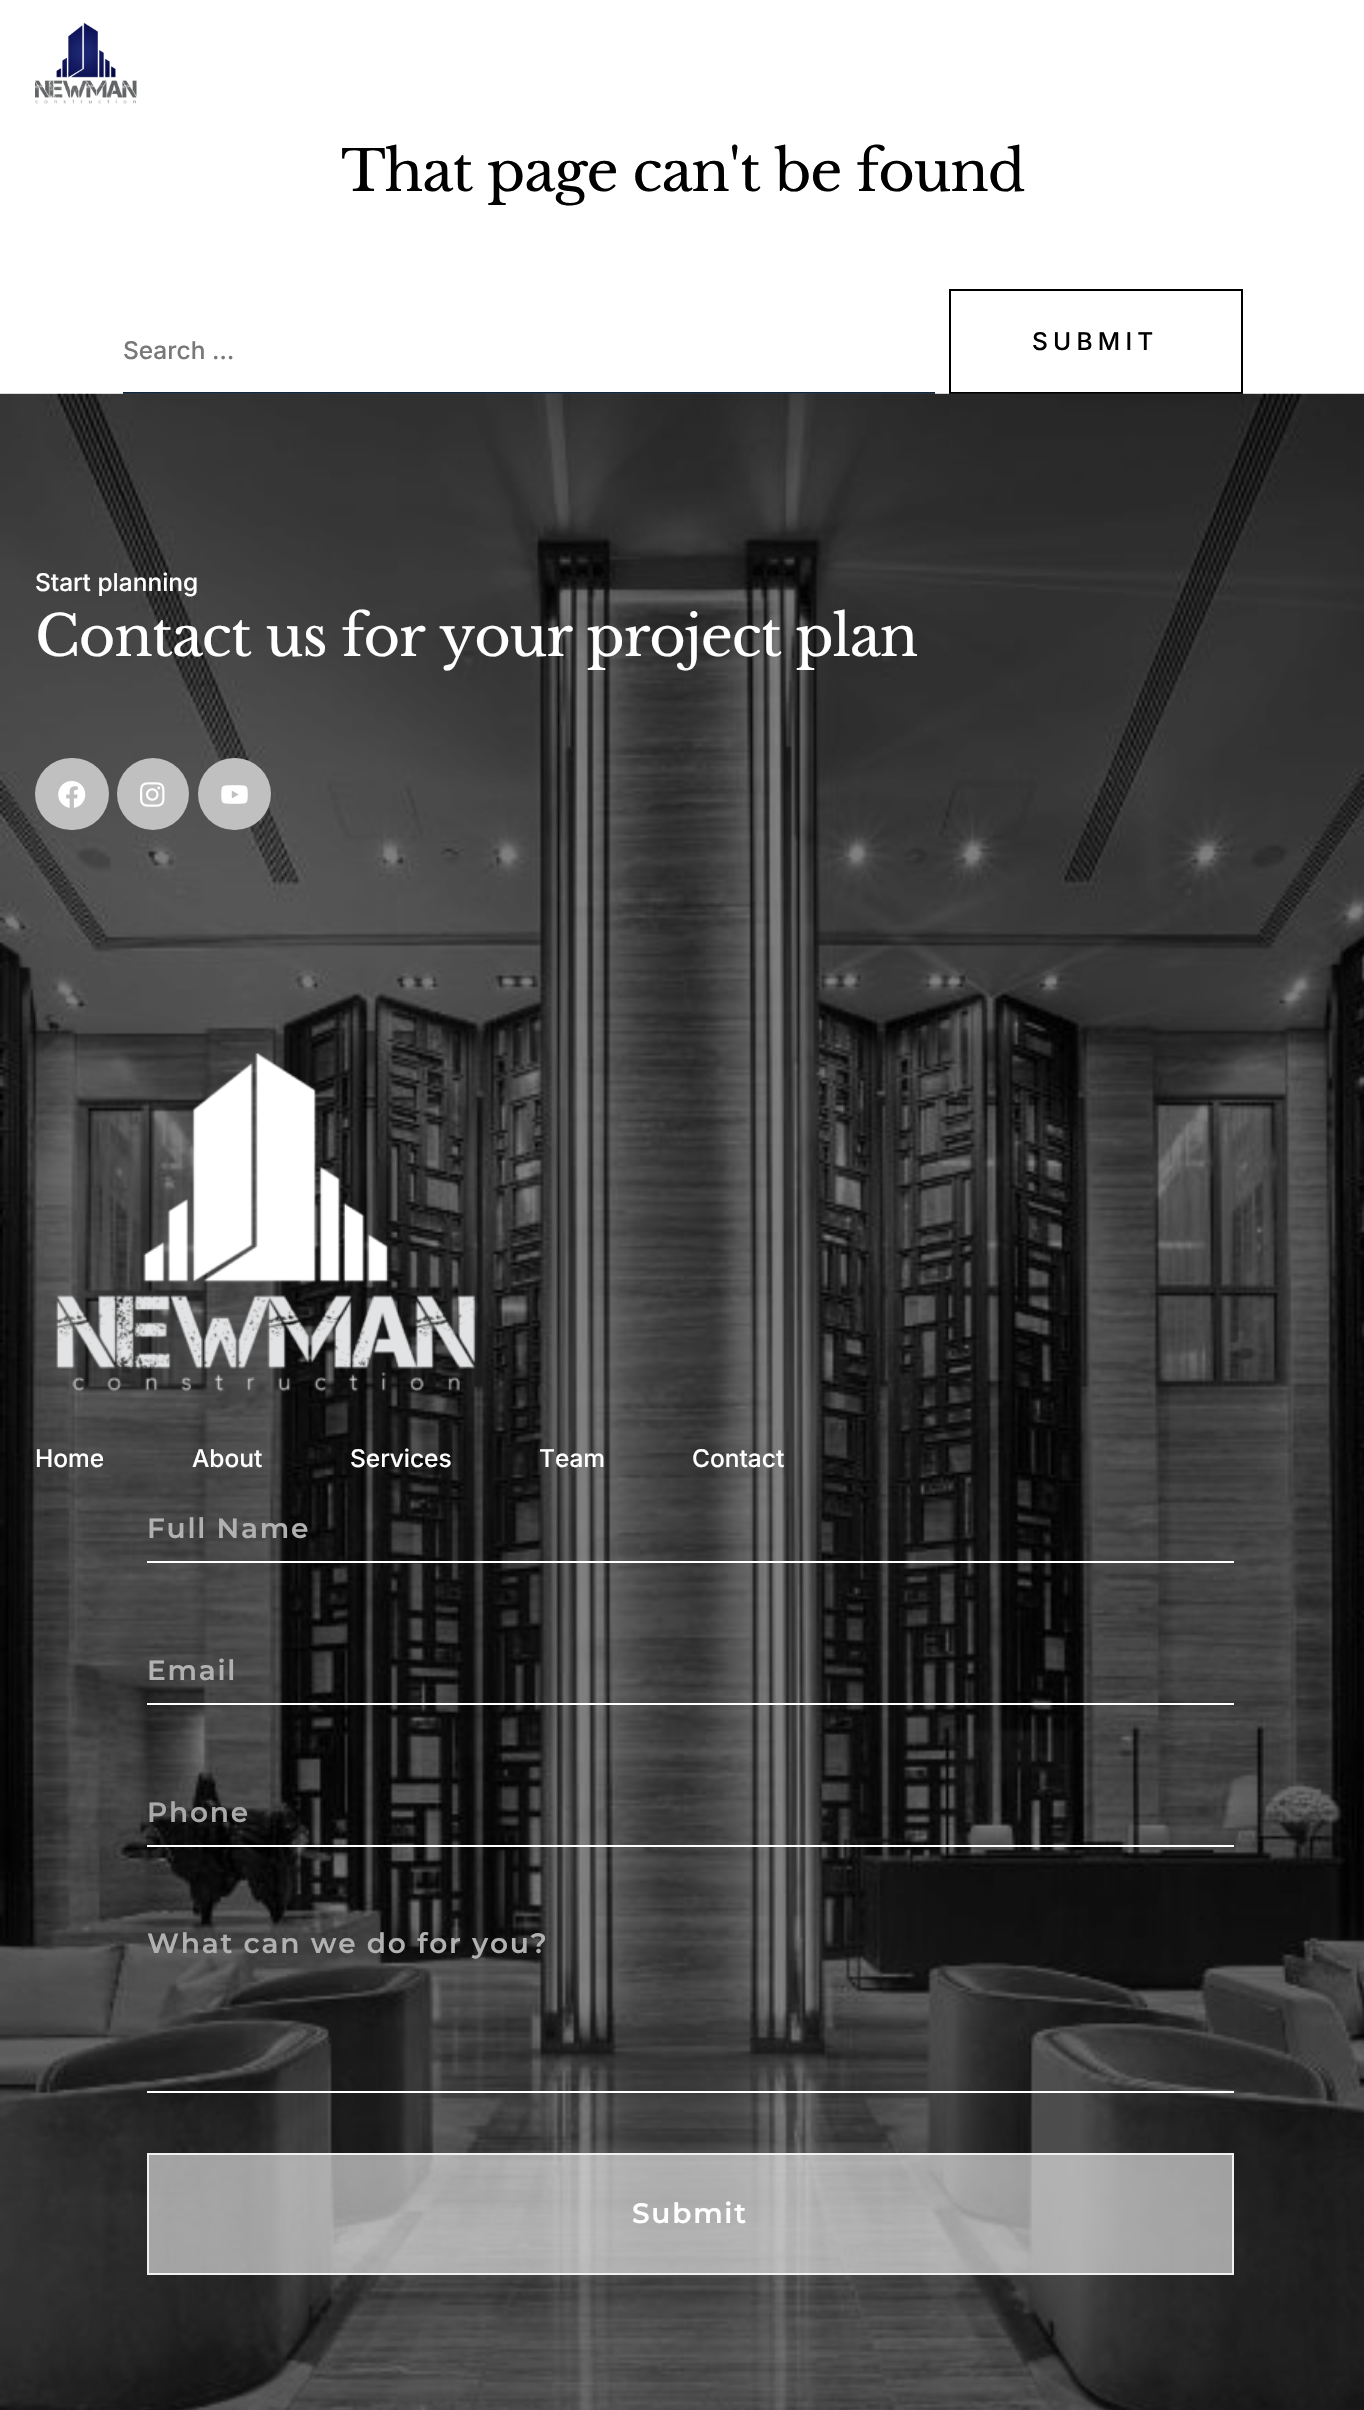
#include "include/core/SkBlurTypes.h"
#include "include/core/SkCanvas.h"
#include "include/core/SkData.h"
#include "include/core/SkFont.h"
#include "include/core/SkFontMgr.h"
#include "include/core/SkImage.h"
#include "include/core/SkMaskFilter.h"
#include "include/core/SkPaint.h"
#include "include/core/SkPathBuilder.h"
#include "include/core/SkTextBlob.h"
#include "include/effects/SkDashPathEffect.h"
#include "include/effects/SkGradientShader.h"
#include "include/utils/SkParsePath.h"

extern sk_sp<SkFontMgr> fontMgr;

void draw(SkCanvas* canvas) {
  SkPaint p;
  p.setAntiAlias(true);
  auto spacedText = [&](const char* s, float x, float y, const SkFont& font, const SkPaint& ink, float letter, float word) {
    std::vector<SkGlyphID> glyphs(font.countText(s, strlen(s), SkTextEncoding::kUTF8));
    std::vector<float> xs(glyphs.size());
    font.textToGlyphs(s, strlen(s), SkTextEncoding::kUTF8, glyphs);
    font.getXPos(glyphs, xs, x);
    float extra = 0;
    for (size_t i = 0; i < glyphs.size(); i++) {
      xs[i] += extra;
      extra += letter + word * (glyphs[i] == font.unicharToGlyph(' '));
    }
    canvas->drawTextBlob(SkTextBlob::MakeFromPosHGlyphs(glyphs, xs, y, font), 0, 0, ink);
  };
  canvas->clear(SK_ColorWHITE);
  canvas->drawImageRect(SkImages::DeferredFromEncodedData(SkData::MakeFromFileName("images/1.png")), SkRect::MakeLTRB(35, 22, 137, 104), SkSamplingOptions());
  p.setColor(SkColorSetRGB(19, 38, 58));
  canvas->drawRect(SkRect::MakeLTRB(123, 392, 935, 394), p);
  p.setStyle(SkPaint::kStroke_Style);
  p.setStrokeWidth(2);
  p.setColor(SK_ColorBLACK);
  canvas->drawRect(SkRect::MakeLTRB(950, 290, 1242, 393), p);
  canvas->drawImageRect(SkImages::DeferredFromEncodedData(SkData::MakeFromFileName("images/2.png")), SkRect::MakeLTRB(0, 393, 1364, 2410), SkSamplingOptions());
  p.setStyle(SkPaint::kFill_Style);
  p.setColor(SkColorSetRGB(192, 192, 192));
  canvas->drawRoundRect(SkRect::MakeLTRB(35, 758, 109, 830), 36, 36, p);
  canvas->drawImageRect(SkImages::DeferredFromEncodedData(SkData::MakeFromFileName("images/3.png")), SkRect::MakeLTRB(58, 781, 86, 808), SkSamplingOptions());
  canvas->drawCircle(153, 794, 36, p);
  canvas->drawImageRect(SkImages::DeferredFromEncodedData(SkData::MakeFromFileName("images/4.png")), SkRect::MakeLTRB(140, 782, 165, 807), SkSamplingOptions());
  canvas->drawRoundRect(SkRect::MakeLTRB(198, 758, 271, 830), 36, 36, p);
  canvas->drawImageRect(SkImages::DeferredFromEncodedData(SkData::MakeFromFileName("images/5.png")), SkRect::MakeLTRB(221, 785, 248, 804), SkSamplingOptions());
  canvas->drawImageRect(SkImages::DeferredFromEncodedData(SkData::MakeFromFileName("images/6.png")), SkRect::MakeLTRB(56, 1053, 476, 1392), SkSamplingOptions());
  p.setColor(SK_ColorWHITE);
  canvas->drawRect(SkRect::MakeLTRB(147, 1561, 1234, 1563), p);
  canvas->drawRect(SkRect::MakeLTRB(147, 1703, 1234, 1705), p);
  canvas->drawRect(SkRect::MakeLTRB(147, 1845, 1234, 1847), p);
  canvas->drawRect(SkRect::MakeLTRB(147, 2091, 1234, 2093), p);
  p.setColor(SkColorSetARGB(158, 240, 240, 240));
  canvas->drawRect(SkRect::MakeLTRB(148, 2154, 1233, 2274), p);
  p.setStyle(SkPaint::kStroke_Style);
  p.setColor(SkColorSetRGB(240, 240, 240));
  canvas->drawRect(SkRect::MakeLTRB(148, 2154, 1233, 2274), p);
  SkFont font1(fontMgr->matchFamilyStyle("Libre Baskerville", SkFontStyle::Normal()), 56);
  font1.setSubpixel(true);
  p.setStyle(SkPaint::kFill_Style);
  p.setColor(SK_ColorBLACK);
  spacedText("That page can't be found", 341, 191, font1, p, -1.1f, 0);
  SkFont font2(fontMgr->matchFamilyStyle("Inter", SkFontStyle(500, SkFontStyle::kNormal_Width, SkFontStyle::kUpright_Slant)), 24.5f);
  font2.setSubpixel(true);
  p.setColor(SkColorSetRGB(120, 120, 120));
  canvas->drawString("Search …", 123, 359, font2, p);
  p.setColor(SK_ColorBLACK);
  spacedText("SUBMIT", 1032, 350, font2, p, 5.25f, 0);
  p.setColor(SK_ColorWHITE);
  canvas->drawString("Start planning", 35, 591, font2, p);
  spacedText("Contact us for your project plan", 35, 656, font1, p, -1.1f, 0);
  canvas->drawString("Home", 35, 1467, font2, p);
  canvas->drawString("About", 192, 1467, font2, p);
  canvas->drawString("Services", 350, 1467, font2, p);
  canvas->drawString("Team", 539, 1467, font2, p);
  canvas->drawString("Contact", 692, 1467, font2, p);
  SkFont font3(fontMgr->matchFamilyStyle("Montserrat", SkFontStyle(600, SkFontStyle::kNormal_Width, SkFontStyle::kUpright_Slant)), 28);
  font3.setSubpixel(true);
  p.setColor(SkColorSetRGB(177, 177, 177));
  spacedText("Full Name", 147, 1538, font3, p, 1.75f, 0);
  spacedText("Email", 147, 1680, font3, p, 1.75f, 0);
  p.setColor(SkColorSetRGB(169, 169, 169));
  spacedText("Phone", 147, 1822, font3, p, 1.75f, 0);
  p.setColor(SkColorSetRGB(177, 177, 177));
  spacedText("What can we do for you?", 147, 1953, font3, p, 1.75f, 0);
  p.setColor(SK_ColorWHITE);
  spacedText("Submit", 632, 2223, font3, p, 1.75f, 0);
}
